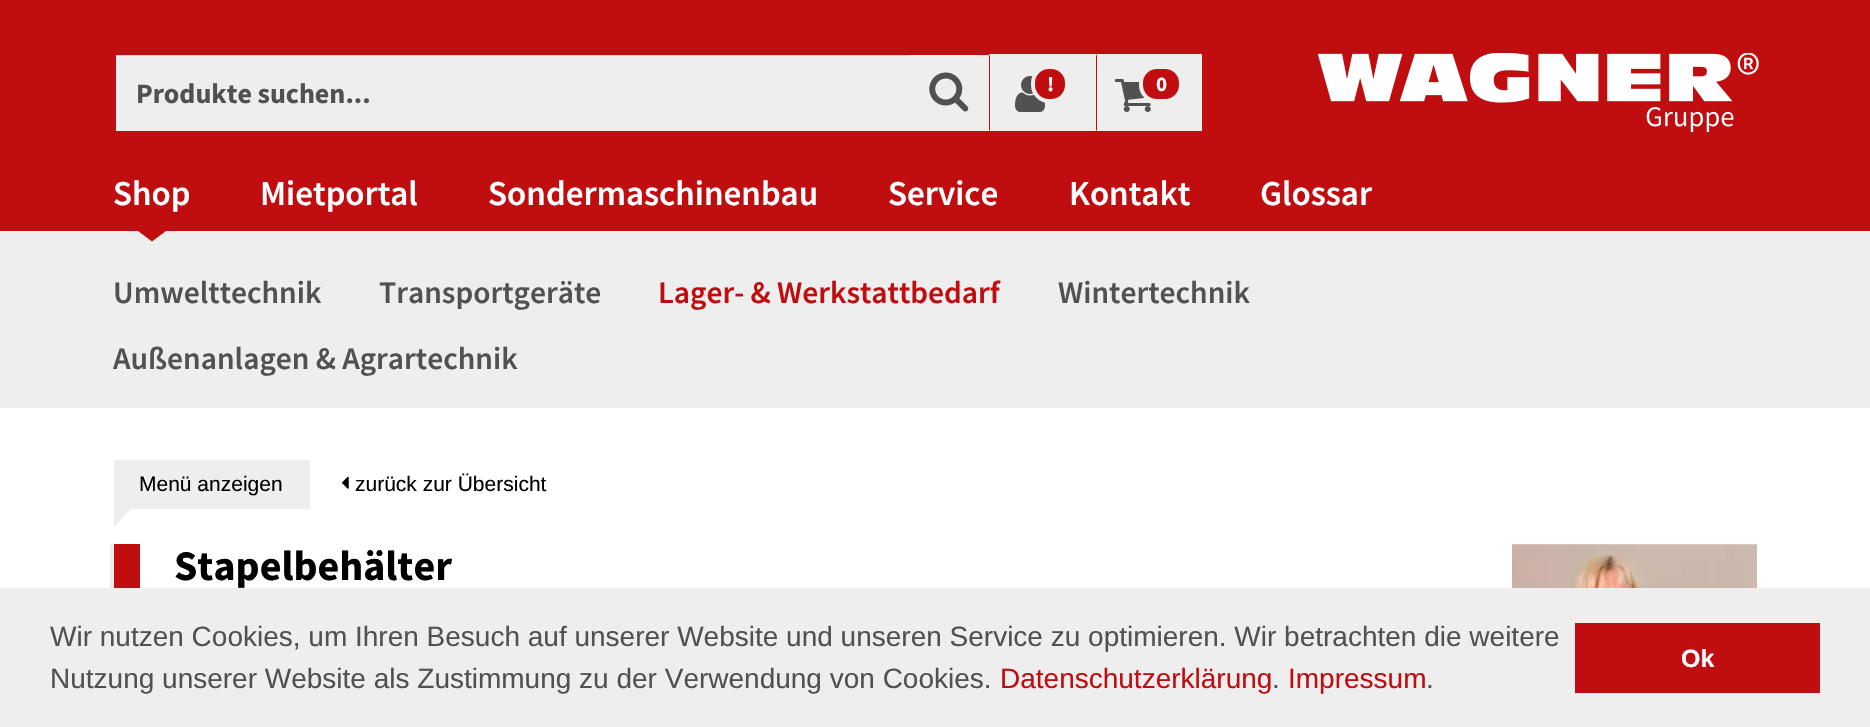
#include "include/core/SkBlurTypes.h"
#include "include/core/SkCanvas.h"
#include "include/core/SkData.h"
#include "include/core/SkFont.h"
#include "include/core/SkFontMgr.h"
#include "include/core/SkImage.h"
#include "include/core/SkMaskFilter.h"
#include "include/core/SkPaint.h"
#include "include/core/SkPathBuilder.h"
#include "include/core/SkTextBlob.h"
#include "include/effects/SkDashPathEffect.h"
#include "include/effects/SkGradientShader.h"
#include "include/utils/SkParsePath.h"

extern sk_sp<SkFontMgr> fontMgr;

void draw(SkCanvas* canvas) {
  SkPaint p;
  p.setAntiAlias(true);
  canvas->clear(SK_ColorWHITE);
  p.setColor(SkColorSetRGB(191, 13, 16));
  canvas->drawRect(SkRect::MakeLTRB(0, 0, 1870, 231), p);
  p.setColor(SkColorSetRGB(238, 238, 238));
  canvas->drawRect(SkRect::MakeLTRB(116, 56, 908, 131), p);
  p.setColor(SkColorSetRGB(220, 220, 220));
  canvas->drawRect(SkRect::MakeLTRB(116, 55, 908, 56), p);
  p.setColor(SkColorSetRGB(238, 238, 238));
  canvas->drawRect(SkRect::MakeLTRB(908, 55, 989, 131), p);
  canvas->drawImageRect(SkImages::DeferredFromEncodedData(SkData::MakeFromFileName("images/1.png")), SkRect::MakeLTRB(929, 72, 969, 112), SkSamplingOptions());
  canvas->drawRect(SkRect::MakeLTRB(989, 54, 1202, 131), p);
  p.setColor(SkColorSetRGB(191, 13, 16));
  canvas->drawPath(SkPathBuilder().moveTo(989, 131).lineTo(989, 54).lineTo(990, 56).lineTo(990, 130).close().detach(), p);
  canvas->drawImageRect(SkImages::DeferredFromEncodedData(SkData::MakeFromFileName("images/2.png")), SkRect::MakeLTRB(1015, 76, 1045, 112), SkSamplingOptions());
  canvas->drawRoundRect(SkRect::MakeLTRB(1033, 67, 1067, 101), 16, 16, p);
  p.setStyle(SkPaint::kStroke_Style);
  p.setStrokeWidth(4);
  p.setColor(SkColorSetRGB(238, 238, 238));
  canvas->drawRoundRect(SkRect::MakeLTRB(1033, 67, 1067, 101), 16, 16, p);
  p.setStyle(SkPaint::kFill_Style);
  p.setColor(SkColorSetRGB(191, 13, 16));
  canvas->drawPath(SkPathBuilder().moveTo(1096, 131).lineTo(1096, 54).lineTo(1097, 56).lineTo(1097, 130).close().detach(), p);
  canvas->drawImageRect(SkImages::DeferredFromEncodedData(SkData::MakeFromFileName("images/3.png")), SkRect::MakeLTRB(1114, 79, 1151, 112), SkSamplingOptions());
  canvas->drawRoundRect(SkRect::MakeLTRB(1141, 67, 1181, 101), 16, 16, p);
  p.setStyle(SkPaint::kStroke_Style);
  p.setColor(SkColorSetRGB(238, 238, 238));
  canvas->drawRoundRect(SkRect::MakeLTRB(1141, 67, 1181, 101), 16, 16, p);
  canvas->drawImageRect(SkImages::DeferredFromEncodedData(SkData::MakeFromFileName("images/4.png")), SkRect::MakeLTRB(1318, 53, 1759, 133), SkSamplingOptions());
  p.setStyle(SkPaint::kFill_Style);
  canvas->drawRect(SkRect::MakeLTRB(0, 231, 1870, 408), p);
  p.setColor(SkColorSetRGB(191, 13, 16));
  canvas->drawPath(SkPathBuilder().moveTo(138, 231).lineTo(166, 231).lineTo(152, 241.5f).close().detach(), p);
  p.setColor(SkColorSetRGB(238, 238, 238));
  canvas->drawRect(SkRect::MakeLTRB(114, 460, 310, 509), p);
  canvas->drawPath(SkPathBuilder().moveTo(114, 509).lineTo(131, 509).lineTo(114, 527).close().detach(), p);
  canvas->drawImageRect(SkImages::DeferredFromEncodedData(SkData::MakeFromFileName("images/5.png")), SkRect::MakeLTRB(342, 476, 349, 489), SkSamplingOptions());
  {
    const SkColor colors[] = {SK_ColorWHITE, SkColorSetRGB(235, 235, 235), SK_ColorWHITE};
    const float stops[] = {0.01f, 0.01f, 0.03f};
    const SkPoint ends[] = {{96, 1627}, {1495, 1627}};
    p.setShader(SkGradientShader::MakeLinear(ends, colors, stops, 3, SkTileMode::kClamp));
    p.setAlpha(255);
  }
  canvas->drawRect(SkRect::MakeLTRB(110, 544, 134, 588), p);
  p.setShader(nullptr);
  p.setColor(SkColorSetRGB(191, 13, 16));
  canvas->drawRect(SkRect::MakeLTRB(114, 544, 140, 588), p);
  canvas->drawImageRect(SkImages::DeferredFromEncodedData(SkData::MakeFromFileName("images/6.png")), SkRect::MakeLTRB(1512, 544, 1757, 588), SkSamplingOptions());
  p.setColor(SkColorSetRGB(238, 238, 238));
  canvas->drawRect(SkRect::MakeLTRB(0, 588, 1870, 727), p);
  p.setColor(SkColorSetRGB(191, 13, 16));
  canvas->drawRect(SkRect::MakeLTRB(1575, 623, 1820, 693), p);
  SkFont font1(fontMgr->matchFamilyStyle("Source Sans Pro", SkFontStyle::Bold()), 28);
  font1.setSubpixel(true);
  p.setColor(SkColorSetRGB(81, 81, 81));
  canvas->drawString("Produkte suchen...", 136, 103, font1, p);
  SkFont font2(fontMgr->matchFamilyStyle("Source Sans Pro", SkFontStyle::Bold()), 21);
  font2.setSubpixel(true);
  p.setColor(SK_ColorWHITE);
  canvas->drawString("!", 1047, 91, font2, p);
  canvas->drawString("0", 1156, 91, font2, p);
  SkFont font3(fontMgr->matchFamilyStyle("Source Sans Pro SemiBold", SkFontStyle(600, SkFontStyle::kNormal_Width, SkFontStyle::kUpright_Slant)), 35);
  font3.setSubpixel(true);
  canvas->drawString("Shop", 113, 205, font3, p);
  canvas->drawString("Mietportal", 260, 205, font3, p);
  canvas->drawString("Sondermaschinenbau", 488, 205, font3, p);
  canvas->drawString("Service", 888, 205, font3, p);
  canvas->drawString("Kontakt", 1069, 205, font3, p);
  canvas->drawString("Glossar", 1260, 205, font3, p);
  SkFont font4(fontMgr->matchFamilyStyle("Source Sans Pro SemiBold", SkFontStyle(600, SkFontStyle::kNormal_Width, SkFontStyle::kUpright_Slant)), 31.5f);
  font4.setSubpixel(true);
  p.setColor(SkColorSetRGB(81, 81, 81));
  canvas->drawString("Umwelttechnik", 113, 303, font4, p);
  canvas->drawString("Transportgeräte", 379, 303, font4, p);
  p.setColor(SkColorSetRGB(191, 13, 16));
  canvas->drawString("Lager- & Werkstattbedarf", 658, 303, font4, p);
  p.setColor(SkColorSetRGB(81, 81, 81));
  canvas->drawString("Wintertechnik", 1058, 303, font4, p);
  canvas->drawString("Außenanlagen & Agrartechnik", 113, 369, font4, p);
  SkFont font5(fontMgr->matchFamilyStyle("Liberation Sans", SkFontStyle::Normal()), 21);
  font5.setSubpixel(true);
  p.setColor(SK_ColorBLACK);
  canvas->drawString("Menü anzeigen", 139, 491, font5, p);
  canvas->drawString("zurück zur Übersicht", 355, 491, font5, p);
  SkFont font6(fontMgr->matchFamilyStyle("Source Sans Pro", SkFontStyle::Bold()), 42);
  font6.setSubpixel(true);
  canvas->drawString("Stapelbehälter", 174, 580, font6, p);
  SkFont font7(fontMgr->matchFamilyStyle("Liberation Sans", SkFontStyle::Normal()), 28);
  font7.setSubpixel(true);
  p.setColor(SkColorSetRGB(81, 81, 81));
  canvas->drawString("Wir nutzen Cookies, um Ihren Besuch auf unserer Website und unseren Service zu optimieren. Wir betrachten die weitere", 50, 646, font7, p);
  canvas->drawString("Nutzung unserer Website als Zustimmung zu der Verwendung von Cookies.", 50, 688, font7, p);
  p.setColor(SkColorSetRGB(191, 13, 16));
  canvas->drawString("Datenschutzerklärung", 1000, 688, font7, p);
  p.setColor(SkColorSetRGB(81, 81, 81));
  canvas->drawString(".", 1272, 688, font7, p);
  p.setColor(SkColorSetRGB(191, 13, 16));
  canvas->drawString("Impressum", 1288, 688, font7, p);
  p.setColor(SkColorSetRGB(81, 81, 81));
  canvas->drawString(".", 1426, 688, font7, p);
  SkFont font8(fontMgr->matchFamilyStyle("Liberation Sans", SkFontStyle::Bold()), 25);
  font8.setSubpixel(true);
  p.setColor(SK_ColorWHITE);
  canvas->drawString("Ok", 1681, 667, font8, p);
}
